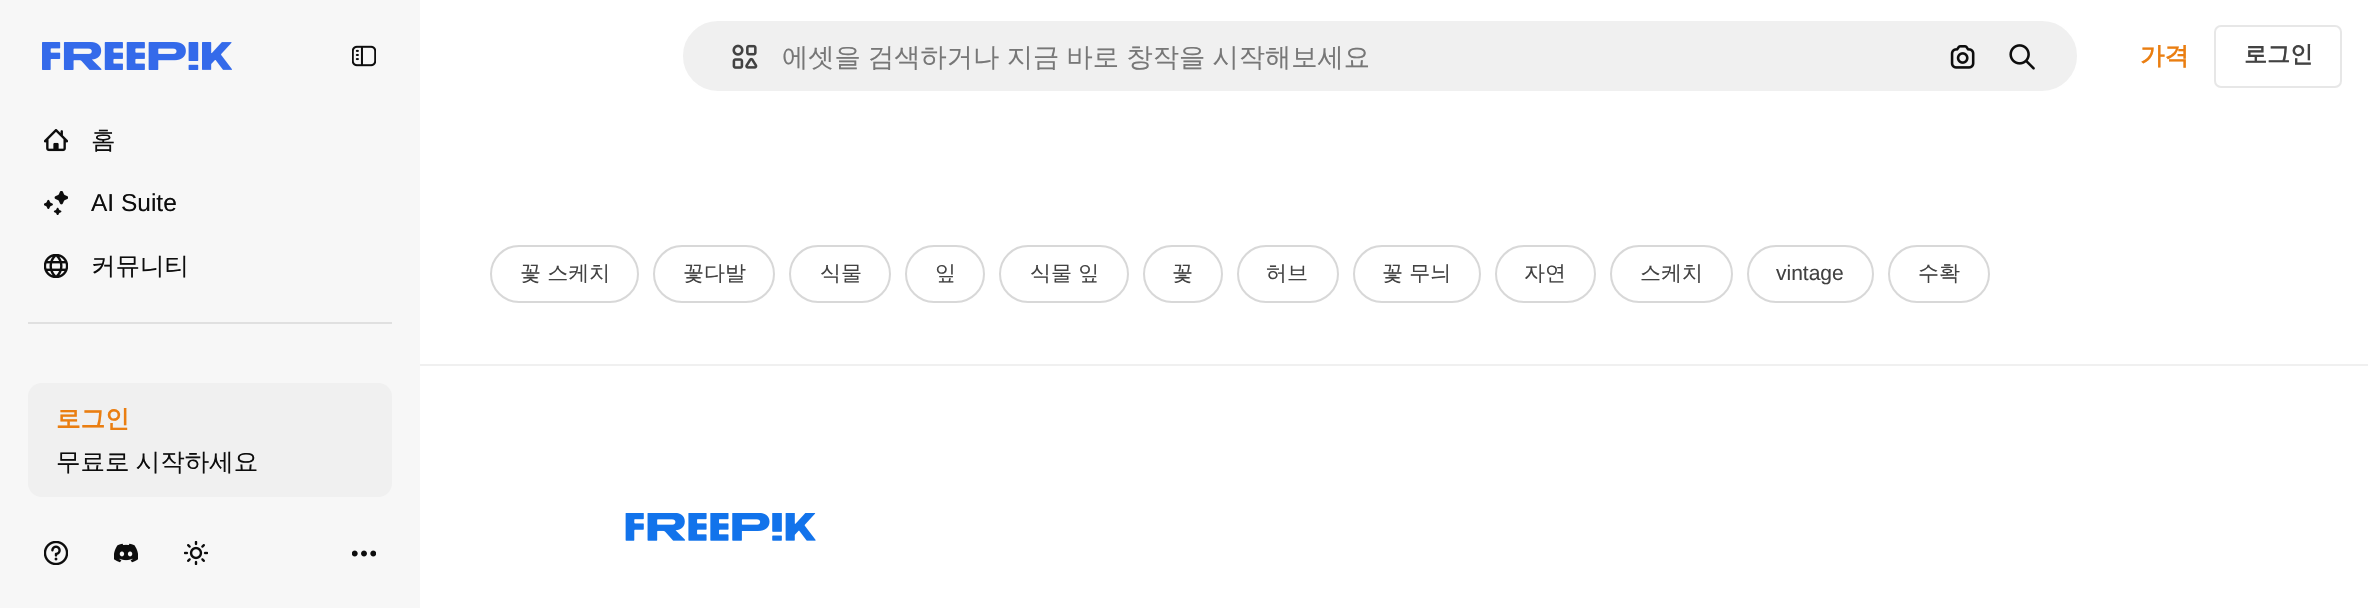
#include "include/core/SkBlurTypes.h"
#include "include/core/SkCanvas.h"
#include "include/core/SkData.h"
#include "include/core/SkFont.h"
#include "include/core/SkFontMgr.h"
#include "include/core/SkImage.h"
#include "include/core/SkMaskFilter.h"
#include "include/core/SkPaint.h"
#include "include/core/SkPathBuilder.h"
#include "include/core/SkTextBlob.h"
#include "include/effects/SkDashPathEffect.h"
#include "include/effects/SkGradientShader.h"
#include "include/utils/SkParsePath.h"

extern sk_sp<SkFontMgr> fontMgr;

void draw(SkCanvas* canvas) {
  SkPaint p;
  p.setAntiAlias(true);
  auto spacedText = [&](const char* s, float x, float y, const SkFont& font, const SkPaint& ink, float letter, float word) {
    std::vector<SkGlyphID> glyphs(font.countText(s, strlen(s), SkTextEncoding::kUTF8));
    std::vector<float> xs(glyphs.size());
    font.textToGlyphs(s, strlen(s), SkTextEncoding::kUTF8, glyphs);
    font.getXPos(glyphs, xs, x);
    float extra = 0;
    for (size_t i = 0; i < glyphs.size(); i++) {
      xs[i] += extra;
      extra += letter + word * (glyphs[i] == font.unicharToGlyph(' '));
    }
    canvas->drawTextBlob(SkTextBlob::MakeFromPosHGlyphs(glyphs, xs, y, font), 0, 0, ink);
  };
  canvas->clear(SK_ColorWHITE);
  p.setColor(SkColorSetRGB(247, 247, 247));
  canvas->drawRect(SkRect::MakeLTRB(0, 0, 420, 608), p);
  canvas->drawImageRect(SkImages::DeferredFromEncodedData(SkData::MakeFromFileName("images/1.png")), SkRect::MakeLTRB(42, 42, 232, 70), SkSamplingOptions());
  canvas->drawImageRect(SkImages::DeferredFromEncodedData(SkData::MakeFromFileName("images/2.png")), SkRect::MakeLTRB(352, 45, 376, 67), SkSamplingOptions());
  canvas->drawImageRect(SkImages::DeferredFromEncodedData(SkData::MakeFromFileName("images/3.png")), SkRect::MakeLTRB(44, 129, 68, 152), SkSamplingOptions());
  canvas->drawImageRect(SkImages::DeferredFromEncodedData(SkData::MakeFromFileName("images/4.png")), SkRect::MakeLTRB(44, 191, 68, 215), SkSamplingOptions());
  canvas->drawImageRect(SkImages::DeferredFromEncodedData(SkData::MakeFromFileName("images/5.png")), SkRect::MakeLTRB(44, 254, 68, 278), SkSamplingOptions());
  p.setColor(SkColorSetRGB(224, 224, 224));
  canvas->drawRect(SkRect::MakeLTRB(28, 322, 392, 324), p);
  p.setColor(SkColorSetRGB(240, 240, 240));
  canvas->drawRoundRect(SkRect::MakeLTRB(28, 383, 392, 497), 14, 14, p);
  canvas->drawImageRect(SkImages::DeferredFromEncodedData(SkData::MakeFromFileName("images/6.png")), SkRect::MakeLTRB(44, 541, 68, 565), SkSamplingOptions());
  canvas->drawImageRect(SkImages::DeferredFromEncodedData(SkData::MakeFromFileName("images/7.png")), SkRect::MakeLTRB(114, 543, 138, 563), SkSamplingOptions());
  canvas->drawImageRect(SkImages::DeferredFromEncodedData(SkData::MakeFromFileName("images/8.png")), SkRect::MakeLTRB(184, 541, 208, 565), SkSamplingOptions());
  canvas->drawImageRect(SkImages::DeferredFromEncodedData(SkData::MakeFromFileName("images/9.png")), SkRect::MakeLTRB(352, 550, 376, 557), SkSamplingOptions());
  canvas->drawRoundRect(SkRect::MakeLTRB(682, 20, 2078, 92), 36, 36, p);
  p.setStyle(SkPaint::kStroke_Style);
  p.setStrokeWidth(2);
  p.setColor(SK_ColorWHITE);
  canvas->drawRoundRect(SkRect::MakeLTRB(682, 20, 2078, 92), 36, 36, p);
  canvas->drawImageRect(SkImages::DeferredFromEncodedData(SkData::MakeFromFileName("images/10.png")), SkRect::MakeLTRB(732, 44, 758, 69), SkSamplingOptions());
  canvas->drawImageRect(SkImages::DeferredFromEncodedData(SkData::MakeFromFileName("images/11.png")), SkRect::MakeLTRB(1950, 45, 1975, 69), SkSamplingOptions());
  canvas->drawImageRect(SkImages::DeferredFromEncodedData(SkData::MakeFromFileName("images/12.png")), SkRect::MakeLTRB(2009, 44, 2035, 70), SkSamplingOptions());
  p.setColor(SkColorSetRGB(231, 231, 231));
  canvas->drawRoundRect(SkRect::MakeLTRB(2215, 26, 2341, 87), 6, 6, p);
  p.setColor(SkColorSetRGB(216, 216, 216));
  canvas->drawRoundRect(SkRect::MakeLTRB(491, 246, 638, 302), 28, 28, p);
  canvas->drawRoundRect(SkRect::MakeLTRB(654, 246, 774, 302), 28, 28, p);
  canvas->drawRoundRect(SkRect::MakeLTRB(790, 246, 890, 302), 28, 28, p);
  canvas->drawRoundRect(SkRect::MakeLTRB(906, 246, 984, 302), 28, 28, p);
  canvas->drawRoundRect(SkRect::MakeLTRB(1000, 246, 1128, 302), 28, 28, p);
  canvas->drawRoundRect(SkRect::MakeLTRB(1144, 246, 1222, 302), 28, 28, p);
  canvas->drawRoundRect(SkRect::MakeLTRB(1238, 246, 1338, 302), 28, 28, p);
  canvas->drawRoundRect(SkRect::MakeLTRB(1354, 246, 1480, 302), 28, 28, p);
  canvas->drawRoundRect(SkRect::MakeLTRB(1496, 246, 1595, 302), 28, 28, p);
  canvas->drawRoundRect(SkRect::MakeLTRB(1611, 246, 1732, 302), 28, 28, p);
  canvas->drawRoundRect(SkRect::MakeLTRB(1748, 246, 1873, 302), 28, 28, p);
  canvas->drawRoundRect(SkRect::MakeLTRB(1889, 246, 1989, 302), 28, 28, p);
  p.setStyle(SkPaint::kFill_Style);
  p.setColor(SkColorSetRGB(240, 240, 240));
  canvas->drawRect(SkRect::MakeLTRB(420, 364, 2368, 366), p);
  canvas->drawImageRect(SkImages::DeferredFromEncodedData(SkData::MakeFromFileName("images/13.png")), SkRect::MakeLTRB(625, 513, 816, 541), SkSamplingOptions());
  SkFont font1(fontMgr->matchFamilyStyle("WenQuanYi Zen Hei", SkFontStyle(500, SkFontStyle::kNormal_Width, SkFontStyle::kUpright_Slant)), 24.5f);
  font1.setSubpixel(true);
  p.setColor(SkColorSetRGB(13, 13, 13));
  canvas->drawString("홈", 91, 148, font1, p);
  SkFont font2(fontMgr->matchFamilyStyle("Liberation Sans", SkFontStyle::Normal()), 24.5f);
  font2.setSubpixel(true);
  canvas->drawString("AI Suite", 91, 211, font2, p);
  canvas->drawString("커뮤니티", 91, 274, font1, p);
  SkFont font3(fontMgr->matchFamilyStyle("WenQuanYi Zen Hei", SkFontStyle::Bold()), 24.5f);
  font3.setSubpixel(true);
  p.setColor(SkColorSetRGB(234, 126, 17));
  canvas->drawString("로그인", 56, 427, font3, p);
  p.setColor(SkColorSetRGB(13, 13, 13));
  spacedText("무료로 시작하세요", 56, 470, font1, p, 0, -1);
  SkFont font4(fontMgr->matchFamilyStyle("WenQuanYi Zen Hei", SkFontStyle(500, SkFontStyle::kNormal_Width, SkFontStyle::kUpright_Slant)), 26.25f);
  font4.setSubpixel(true);
  p.setColor(SkColorSetRGB(119, 119, 119));
  spacedText("에셋을 검색하거나 지금 바로 창작을 시작해보세요", 782, 66, font4, p, 0, -0.5f);
  p.setColor(SkColorSetRGB(234, 126, 17));
  canvas->drawString("가격", 2140, 64, font3, p);
  SkFont font5(fontMgr->matchFamilyStyle("WenQuanYi Zen Hei", SkFontStyle::Bold()), 23);
  font5.setSubpixel(true);
  p.setColor(SkColorSetRGB(66, 66, 66));
  canvas->drawString("로그인", 2244, 62, font5, p);
  SkFont font6(fontMgr->matchFamilyStyle("WenQuanYi Zen Hei", SkFontStyle(500, SkFontStyle::kNormal_Width, SkFontStyle::kUpright_Slant)), 21);
  font6.setSubpixel(true);
  canvas->drawString("꽃 스케치", 520, 280, font6, p);
  canvas->drawString("꽃다발", 683, 280, font6, p);
  canvas->drawString("식물", 820, 280, font6, p);
  canvas->drawString("잎", 935, 280, font6, p);
  canvas->drawString("식물 잎", 1030, 280, font6, p);
  canvas->drawString("꽃", 1172, 280, font6, p);
  canvas->drawString("허브", 1266, 280, font6, p);
  canvas->drawString("꽃 무늬", 1382, 280, font6, p);
  canvas->drawString("자연", 1524, 280, font6, p);
  canvas->drawString("스케치", 1640, 280, font6, p);
  SkFont font7(fontMgr->matchFamilyStyle("Liberation Sans", SkFontStyle::Normal()), 21);
  font7.setSubpixel(true);
  canvas->drawString("vintage", 1776, 280, font7, p);
  canvas->drawString("수확", 1918, 280, font6, p);
}
